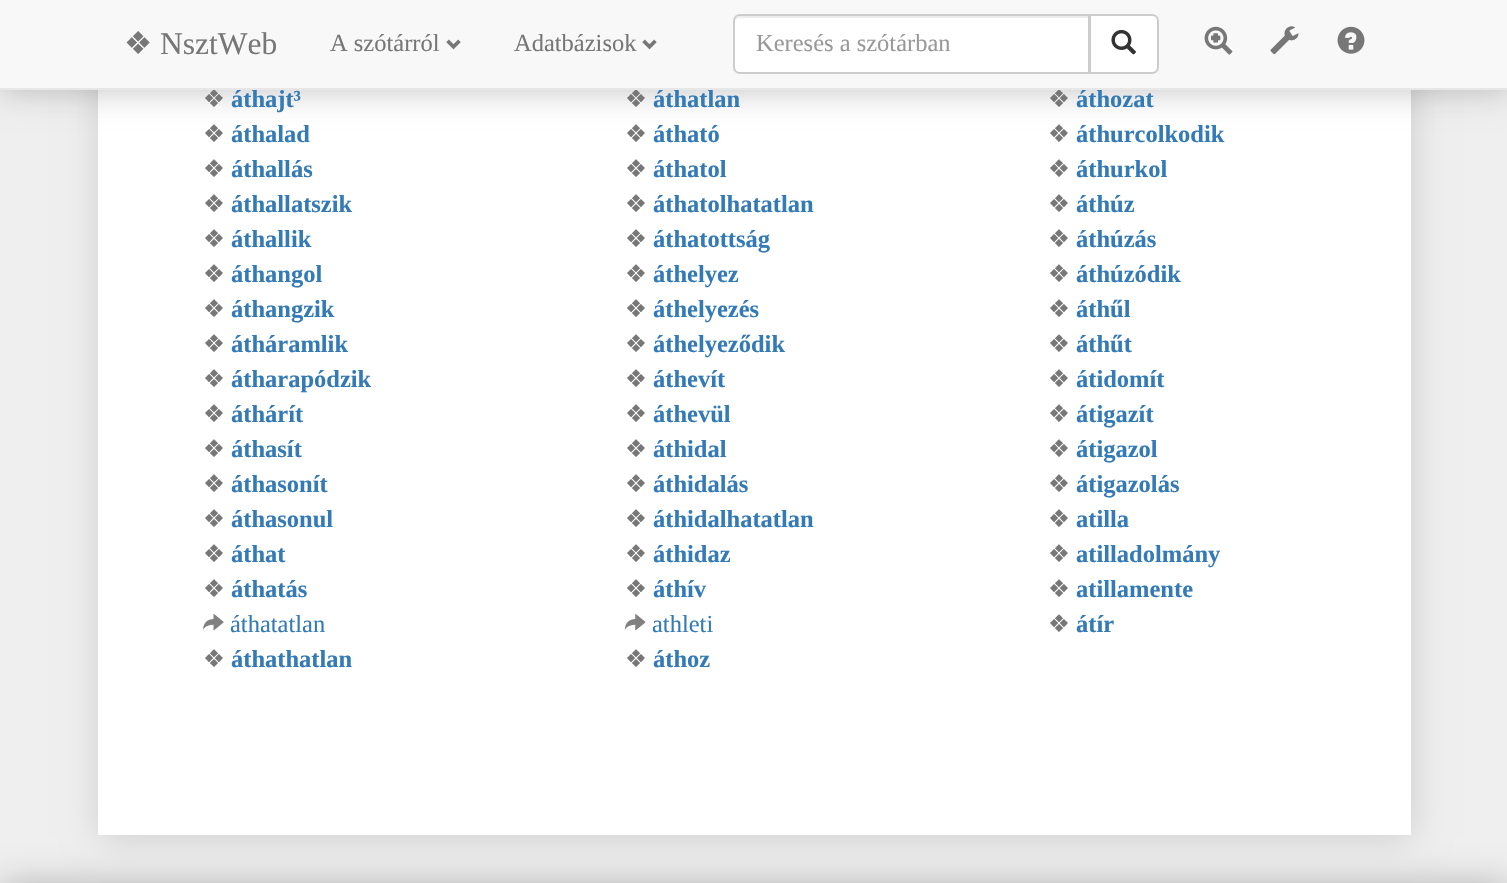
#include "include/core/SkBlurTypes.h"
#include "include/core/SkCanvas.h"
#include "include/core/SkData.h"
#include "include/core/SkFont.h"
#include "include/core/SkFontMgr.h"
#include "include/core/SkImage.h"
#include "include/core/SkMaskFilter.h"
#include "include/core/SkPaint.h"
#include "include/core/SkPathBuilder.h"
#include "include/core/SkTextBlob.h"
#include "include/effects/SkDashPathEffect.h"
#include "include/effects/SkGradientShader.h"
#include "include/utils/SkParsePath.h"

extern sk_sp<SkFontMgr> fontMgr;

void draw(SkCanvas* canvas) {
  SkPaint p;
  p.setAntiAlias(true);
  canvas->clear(SkColorSetRGB(239, 239, 239));
  p.setColor(SkColorSetRGB(204, 204, 204));
  p.setMaskFilter(SkMaskFilter::MakeBlur(kNormal_SkBlurStyle, 17.5f));
  canvas->drawRect(SkRect::MakeLTRB(100, -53, 1412, 837), p);
  p.setMaskFilter(nullptr);
  p.setColor(SK_ColorWHITE);
  canvas->drawRect(SkRect::MakeLTRB(98, 90, 1411, 835), p);
  p.setColor(SkColorSetARGB(64, 0, 0, 0));
  p.setMaskFilter(SkMaskFilter::MakeBlur(kNormal_SkBlurStyle, 17.5f));
  canvas->drawRect(SkRect::MakeLTRB(0, 0, 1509, 89), p);
  p.setMaskFilter(nullptr);
  p.setColor(SkColorSetRGB(248, 248, 248));
  canvas->drawRect(SkRect::MakeLTRB(0, 0, 1507, 88), p);
  canvas->drawImageRect(SkImages::DeferredFromEncodedData(SkData::MakeFromFileName("images/1.png")), SkRect::MakeLTRB(446, 39, 461, 50), SkSamplingOptions());
  canvas->drawImageRect(SkImages::DeferredFromEncodedData(SkData::MakeFromFileName("images/1.png")), SkRect::MakeLTRB(642, 39, 657, 50), SkSamplingOptions());
  p.setColor(SK_ColorWHITE);
  canvas->drawPath(SkPathBuilder().moveTo(740, 14).lineTo(1090, 14).lineTo(1090, 74).lineTo(740, 74).cubicTo(736, 74, 733, 71, 733, 67).lineTo(733, 21).cubicTo(733, 17, 736, 14, 740, 14).close().detach(), p);
  p.setColor(SkColorSetRGB(236, 236, 236));
  canvas->drawPath(SkPathBuilder().moveTo(740, 18).lineTo(1088, 18).lineTo(1088, 72).lineTo(1089, 72).lineTo(1089, 16).lineTo(740, 16).cubicTo(736, 16, 735, 20, 735, 23).cubicTo(735, 20, 737, 18, 740, 18).close().detach(), p);
  p.setStyle(SkPaint::kStroke_Style);
  p.setStrokeWidth(2);
  p.setColor(SkColorSetRGB(204, 204, 204));
  canvas->drawPath(SkPathBuilder().moveTo(740, 15).lineTo(1089, 15).lineTo(1089, 73).lineTo(740, 73).cubicTo(736.5f, 73, 734, 70.5f, 734, 67).lineTo(734, 21).cubicTo(734, 17.5f, 736.5f, 15, 740, 15).close().detach(), p);
  p.setStyle(SkPaint::kFill_Style);
  p.setColor(SK_ColorWHITE);
  canvas->drawPath(SkPathBuilder().moveTo(1090, 15).lineTo(1152, 15).cubicTo(1155.5f, 15, 1158, 17.5f, 1158, 21).lineTo(1158, 67).cubicTo(1158, 70.5f, 1155.5f, 73, 1152, 73).lineTo(1090, 73).close().detach(), p);
  p.setStyle(SkPaint::kStroke_Style);
  p.setColor(SkColorSetRGB(204, 204, 204));
  canvas->drawPath(SkPathBuilder().moveTo(1090, 15).lineTo(1152, 15).cubicTo(1155.5f, 15, 1158, 17.5f, 1158, 21).lineTo(1158, 67).cubicTo(1158, 70.5f, 1155.5f, 73, 1152, 73).lineTo(1090, 73).close().detach(), p);
  canvas->drawImageRect(SkImages::DeferredFromEncodedData(SkData::MakeFromFileName("images/2.png")), SkRect::MakeLTRB(1111, 29, 1136, 55), SkSamplingOptions());
  canvas->drawImageRect(SkImages::DeferredFromEncodedData(SkData::MakeFromFileName("images/3.png")), SkRect::MakeLTRB(1204, 26, 1233, 55), SkSamplingOptions());
  canvas->drawImageRect(SkImages::DeferredFromEncodedData(SkData::MakeFromFileName("images/4.png")), SkRect::MakeLTRB(1270, 26, 1299, 55), SkSamplingOptions());
  canvas->drawImageRect(SkImages::DeferredFromEncodedData(SkData::MakeFromFileName("images/5.png")), SkRect::MakeLTRB(1337, 26, 1365, 54), SkSamplingOptions());
  canvas->drawImageRect(SkImages::DeferredFromEncodedData(SkData::MakeFromFileName("images/6.png")), SkRect::MakeLTRB(203, 614, 224, 631), SkSamplingOptions());
  canvas->drawImageRect(SkImages::DeferredFromEncodedData(SkData::MakeFromFileName("images/7.png")), SkRect::MakeLTRB(624, 614, 646, 631), SkSamplingOptions());
  p.setStyle(SkPaint::kFill_Style);
  p.setColor(SkColorSetARGB(64, 0, 0, 0));
  p.setMaskFilter(SkMaskFilter::MakeBlur(kNormal_SkBlurStyle, 17.5f));
  canvas->drawRect(SkRect::MakeLTRB(0, 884, 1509, 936), p);
  p.setMaskFilter(nullptr);
  SkFont font1(fontMgr->matchFamilyStyle("DejaVu Sans", SkFontStyle::Normal()), 31.5f);
  font1.setSubpixel(true);
  p.setColor(SkColorSetRGB(119, 119, 119));
  canvas->drawString("❖", 124, 54, font1, p);
  SkFont font2(fontMgr->matchFamilyStyle("Liberation Serif", SkFontStyle::Normal()), 31.5f);
  font2.setSubpixel(true);
  canvas->drawString("NsztWeb", 160, 54, font2, p);
  SkFont font3(fontMgr->matchFamilyStyle("Liberation Serif", SkFontStyle::Normal()), 24.5f);
  font3.setSubpixel(true);
  canvas->drawString("A szótárról", 330, 51, font3, p);
  canvas->drawString("Adatbázisok", 514, 51, font3, p);
  p.setColor(SkColorSetRGB(153, 153, 153));
  canvas->drawString("Keresés a szótárban", 756, 51, font3, p);
  SkFont font4(fontMgr->matchFamilyStyle("DejaVu Sans", SkFontStyle::Normal()), 24.5f);
  font4.setSubpixel(true);
  p.setColor(SkColorSetRGB(119, 119, 119));
  canvas->drawString("❖", 203, 107, font4, p);
  SkFont font5(fontMgr->matchFamilyStyle("Liberation Serif", SkFontStyle::Bold()), 24.5f);
  font5.setSubpixel(true);
  p.setColor(SkColorSetRGB(51, 122, 183));
  canvas->drawString("áthajt³", 231, 107, font5, p);
  p.setColor(SkColorSetRGB(119, 119, 119));
  canvas->drawString("❖", 625, 107, font4, p);
  p.setColor(SkColorSetRGB(51, 122, 183));
  canvas->drawString("áthatlan", 653, 107, font5, p);
  p.setColor(SkColorSetRGB(119, 119, 119));
  canvas->drawString("❖", 1048, 107, font4, p);
  p.setColor(SkColorSetRGB(231, 231, 231));
  canvas->drawRect(SkRect::MakeLTRB(0, 88, 1507, 90), p);
  p.setColor(SkColorSetRGB(51, 122, 183));
  canvas->drawString("áthozat", 1076, 107, font5, p);
  p.setColor(SkColorSetRGB(119, 119, 119));
  canvas->drawString("❖", 203, 142, font4, p);
  p.setColor(SkColorSetRGB(51, 122, 183));
  canvas->drawString("áthalad", 231, 142, font5, p);
  p.setColor(SkColorSetRGB(119, 119, 119));
  canvas->drawString("❖", 625, 142, font4, p);
  p.setColor(SkColorSetRGB(51, 122, 183));
  canvas->drawString("átható", 653, 142, font5, p);
  p.setColor(SkColorSetRGB(119, 119, 119));
  canvas->drawString("❖", 1048, 142, font4, p);
  p.setColor(SkColorSetRGB(51, 122, 183));
  canvas->drawString("áthurcolkodik", 1076, 142, font5, p);
  p.setColor(SkColorSetRGB(119, 119, 119));
  canvas->drawString("❖", 203, 177, font4, p);
  p.setColor(SkColorSetRGB(51, 122, 183));
  canvas->drawString("áthallás", 231, 177, font5, p);
  p.setColor(SkColorSetRGB(119, 119, 119));
  canvas->drawString("❖", 625, 177, font4, p);
  p.setColor(SkColorSetRGB(51, 122, 183));
  canvas->drawString("áthatol", 653, 177, font5, p);
  p.setColor(SkColorSetRGB(119, 119, 119));
  canvas->drawString("❖", 1048, 177, font4, p);
  p.setColor(SkColorSetRGB(51, 122, 183));
  canvas->drawString("áthurkol", 1076, 177, font5, p);
  p.setColor(SkColorSetRGB(119, 119, 119));
  canvas->drawString("❖", 203, 212, font4, p);
  p.setColor(SkColorSetRGB(51, 122, 183));
  canvas->drawString("áthallatszik", 231, 212, font5, p);
  p.setColor(SkColorSetRGB(119, 119, 119));
  canvas->drawString("❖", 625, 212, font4, p);
  p.setColor(SkColorSetRGB(51, 122, 183));
  canvas->drawString("áthatolhatatlan", 653, 212, font5, p);
  p.setColor(SkColorSetRGB(119, 119, 119));
  canvas->drawString("❖", 1048, 212, font4, p);
  p.setColor(SkColorSetRGB(51, 122, 183));
  canvas->drawString("áthúz", 1076, 212, font5, p);
  p.setColor(SkColorSetRGB(119, 119, 119));
  canvas->drawString("❖", 203, 247, font4, p);
  p.setColor(SkColorSetRGB(51, 122, 183));
  canvas->drawString("áthallik", 231, 247, font5, p);
  p.setColor(SkColorSetRGB(119, 119, 119));
  canvas->drawString("❖", 625, 247, font4, p);
  p.setColor(SkColorSetRGB(51, 122, 183));
  canvas->drawString("áthatottság", 653, 247, font5, p);
  p.setColor(SkColorSetRGB(119, 119, 119));
  canvas->drawString("❖", 1048, 247, font4, p);
  p.setColor(SkColorSetRGB(51, 122, 183));
  canvas->drawString("áthúzás", 1076, 247, font5, p);
  p.setColor(SkColorSetRGB(119, 119, 119));
  canvas->drawString("❖", 203, 282, font4, p);
  p.setColor(SkColorSetRGB(51, 122, 183));
  canvas->drawString("áthangol", 231, 282, font5, p);
  p.setColor(SkColorSetRGB(119, 119, 119));
  canvas->drawString("❖", 625, 282, font4, p);
  p.setColor(SkColorSetRGB(51, 122, 183));
  canvas->drawString("áthelyez", 653, 282, font5, p);
  p.setColor(SkColorSetRGB(119, 119, 119));
  canvas->drawString("❖", 1048, 282, font4, p);
  p.setColor(SkColorSetRGB(51, 122, 183));
  canvas->drawString("áthúzódik", 1076, 282, font5, p);
  p.setColor(SkColorSetRGB(119, 119, 119));
  canvas->drawString("❖", 203, 317, font4, p);
  p.setColor(SkColorSetRGB(51, 122, 183));
  canvas->drawString("áthangzik", 231, 317, font5, p);
  p.setColor(SkColorSetRGB(119, 119, 119));
  canvas->drawString("❖", 625, 317, font4, p);
  p.setColor(SkColorSetRGB(51, 122, 183));
  canvas->drawString("áthelyezés", 653, 317, font5, p);
  p.setColor(SkColorSetRGB(119, 119, 119));
  canvas->drawString("❖", 1048, 317, font4, p);
  p.setColor(SkColorSetRGB(51, 122, 183));
  canvas->drawString("áthűl", 1076, 317, font5, p);
  p.setColor(SkColorSetRGB(119, 119, 119));
  canvas->drawString("❖", 203, 352, font4, p);
  p.setColor(SkColorSetRGB(51, 122, 183));
  canvas->drawString("átháramlik", 231, 352, font5, p);
  p.setColor(SkColorSetRGB(119, 119, 119));
  canvas->drawString("❖", 625, 352, font4, p);
  p.setColor(SkColorSetRGB(51, 122, 183));
  canvas->drawString("áthelyeződik", 653, 352, font5, p);
  p.setColor(SkColorSetRGB(119, 119, 119));
  canvas->drawString("❖", 1048, 352, font4, p);
  p.setColor(SkColorSetRGB(51, 122, 183));
  canvas->drawString("áthűt", 1076, 352, font5, p);
  p.setColor(SkColorSetRGB(119, 119, 119));
  canvas->drawString("❖", 203, 387, font4, p);
  p.setColor(SkColorSetRGB(51, 122, 183));
  canvas->drawString("átharapódzik", 231, 387, font5, p);
  p.setColor(SkColorSetRGB(119, 119, 119));
  canvas->drawString("❖", 625, 387, font4, p);
  p.setColor(SkColorSetRGB(51, 122, 183));
  canvas->drawString("áthevít", 653, 387, font5, p);
  p.setColor(SkColorSetRGB(119, 119, 119));
  canvas->drawString("❖", 1048, 387, font4, p);
  p.setColor(SkColorSetRGB(51, 122, 183));
  canvas->drawString("átidomít", 1076, 387, font5, p);
  p.setColor(SkColorSetRGB(119, 119, 119));
  canvas->drawString("❖", 203, 422, font4, p);
  p.setColor(SkColorSetRGB(51, 122, 183));
  canvas->drawString("áthárít", 231, 422, font5, p);
  p.setColor(SkColorSetRGB(119, 119, 119));
  canvas->drawString("❖", 625, 422, font4, p);
  p.setColor(SkColorSetRGB(51, 122, 183));
  canvas->drawString("áthevül", 653, 422, font5, p);
  p.setColor(SkColorSetRGB(119, 119, 119));
  canvas->drawString("❖", 1048, 422, font4, p);
  p.setColor(SkColorSetRGB(51, 122, 183));
  canvas->drawString("átigazít", 1076, 422, font5, p);
  p.setColor(SkColorSetRGB(119, 119, 119));
  canvas->drawString("❖", 203, 457, font4, p);
  p.setColor(SkColorSetRGB(51, 122, 183));
  canvas->drawString("áthasít", 231, 457, font5, p);
  p.setColor(SkColorSetRGB(119, 119, 119));
  canvas->drawString("❖", 625, 457, font4, p);
  p.setColor(SkColorSetRGB(51, 122, 183));
  canvas->drawString("áthidal", 653, 457, font5, p);
  p.setColor(SkColorSetRGB(119, 119, 119));
  canvas->drawString("❖", 1048, 457, font4, p);
  p.setColor(SkColorSetRGB(51, 122, 183));
  canvas->drawString("átigazol", 1076, 457, font5, p);
  p.setColor(SkColorSetRGB(119, 119, 119));
  canvas->drawString("❖", 203, 492, font4, p);
  p.setColor(SkColorSetRGB(51, 122, 183));
  canvas->drawString("áthasonít", 231, 492, font5, p);
  p.setColor(SkColorSetRGB(119, 119, 119));
  canvas->drawString("❖", 625, 492, font4, p);
  p.setColor(SkColorSetRGB(51, 122, 183));
  canvas->drawString("áthidalás", 653, 492, font5, p);
  p.setColor(SkColorSetRGB(119, 119, 119));
  canvas->drawString("❖", 1048, 492, font4, p);
  p.setColor(SkColorSetRGB(51, 122, 183));
  canvas->drawString("átigazolás", 1076, 492, font5, p);
  p.setColor(SkColorSetRGB(119, 119, 119));
  canvas->drawString("❖", 203, 527, font4, p);
  p.setColor(SkColorSetRGB(51, 122, 183));
  canvas->drawString("áthasonul", 231, 527, font5, p);
  p.setColor(SkColorSetRGB(119, 119, 119));
  canvas->drawString("❖", 625, 527, font4, p);
  p.setColor(SkColorSetRGB(51, 122, 183));
  canvas->drawString("áthidalhatatlan", 653, 527, font5, p);
  p.setColor(SkColorSetRGB(119, 119, 119));
  canvas->drawString("❖", 1048, 527, font4, p);
  p.setColor(SkColorSetRGB(51, 122, 183));
  canvas->drawString("atilla", 1076, 527, font5, p);
  p.setColor(SkColorSetRGB(119, 119, 119));
  canvas->drawString("❖", 203, 562, font4, p);
  p.setColor(SkColorSetRGB(51, 122, 183));
  canvas->drawString("áthat", 231, 562, font5, p);
  p.setColor(SkColorSetRGB(119, 119, 119));
  canvas->drawString("❖", 625, 562, font4, p);
  p.setColor(SkColorSetRGB(51, 122, 183));
  canvas->drawString("áthidaz", 653, 562, font5, p);
  p.setColor(SkColorSetRGB(119, 119, 119));
  canvas->drawString("❖", 1048, 562, font4, p);
  p.setColor(SkColorSetRGB(51, 122, 183));
  canvas->drawString("atilladolmány", 1076, 562, font5, p);
  p.setColor(SkColorSetRGB(119, 119, 119));
  canvas->drawString("❖", 203, 597, font4, p);
  p.setColor(SkColorSetRGB(51, 122, 183));
  canvas->drawString("áthatás", 231, 597, font5, p);
  p.setColor(SkColorSetRGB(119, 119, 119));
  canvas->drawString("❖", 625, 597, font4, p);
  p.setColor(SkColorSetRGB(51, 122, 183));
  canvas->drawString("áthív", 653, 597, font5, p);
  p.setColor(SkColorSetRGB(119, 119, 119));
  canvas->drawString("❖", 1048, 597, font4, p);
  p.setColor(SkColorSetRGB(51, 122, 183));
  canvas->drawString("atillamente", 1076, 597, font5, p);
  canvas->drawString("áthatatlan", 230, 632, font3, p);
  canvas->drawString("athleti", 652, 632, font3, p);
  p.setColor(SkColorSetRGB(119, 119, 119));
  canvas->drawString("❖", 1048, 632, font4, p);
  p.setColor(SkColorSetRGB(51, 122, 183));
  canvas->drawString("átír", 1076, 632, font5, p);
  p.setColor(SkColorSetRGB(119, 119, 119));
  canvas->drawString("❖", 203, 667, font4, p);
  p.setColor(SkColorSetRGB(51, 122, 183));
  canvas->drawString("áthathatlan", 231, 667, font5, p);
  p.setColor(SkColorSetRGB(119, 119, 119));
  canvas->drawString("❖", 625, 667, font4, p);
  p.setColor(SkColorSetRGB(51, 122, 183));
  canvas->drawString("áthoz", 653, 667, font5, p);
}
